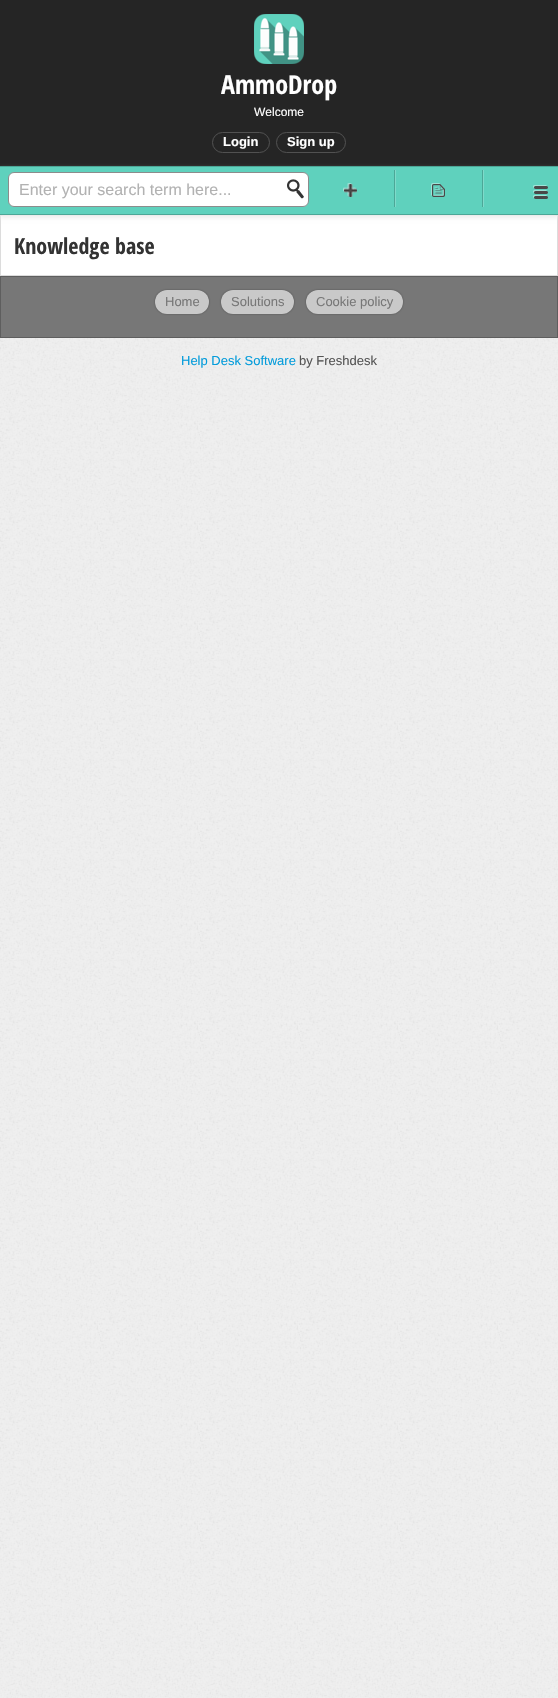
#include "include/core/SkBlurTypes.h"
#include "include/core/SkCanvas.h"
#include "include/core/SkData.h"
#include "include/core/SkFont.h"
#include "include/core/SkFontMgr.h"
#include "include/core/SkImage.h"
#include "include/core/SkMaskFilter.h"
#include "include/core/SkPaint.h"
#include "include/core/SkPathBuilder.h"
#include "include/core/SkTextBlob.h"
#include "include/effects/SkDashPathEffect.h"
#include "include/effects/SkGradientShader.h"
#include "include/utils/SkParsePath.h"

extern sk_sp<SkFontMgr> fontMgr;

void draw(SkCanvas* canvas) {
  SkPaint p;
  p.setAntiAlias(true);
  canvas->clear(SkColorSetRGB(239, 239, 239));
  canvas->drawImageRect(SkImages::DeferredFromEncodedData(SkData::MakeFromFileName("images/1.png")), SkRect::MakeLTRB(0, 338, 558, 1698), SkSamplingOptions());
  p.setColor(SkColorSetRGB(37, 37, 37));
  canvas->drawRect(SkRect::MakeLTRB(0, 0, 558, 166), p);
  canvas->drawImageRect(SkImages::DeferredFromEncodedData(SkData::MakeFromFileName("images/2.png")), SkRect::MakeLTRB(254, 14, 304, 64), SkSamplingOptions());
  p.setStyle(SkPaint::kStroke_Style);
  p.setStrokeWidth(1);
  p.setColor(SkColorSetRGB(81, 81, 81));
  canvas->drawRoundRect(SkRect::MakeLTRB(212.5f, 132.5f, 269.5f, 152.5f), 10, 10, p);
  canvas->drawRoundRect(SkRect::MakeLTRB(276.5f, 132.5f, 345.5f, 152.5f), 10, 10, p);
  p.setStyle(SkPaint::kFill_Style);
  p.setColor(SK_ColorWHITE);
  canvas->drawRect(SkRect::MakeLTRB(0.5f, 215.5f, 557.5f, 275.5f), p);
  p.setStyle(SkPaint::kStroke_Style);
  p.setColor(SkColorSetRGB(220, 220, 220));
  canvas->drawRect(SkRect::MakeLTRB(0.5f, 215.5f, 557.5f, 275.5f), p);
  p.setStyle(SkPaint::kFill_Style);
  p.setColor(SkColorSetRGB(238, 238, 238));
  p.setMaskFilter(SkMaskFilter::MakeBlur(kNormal_SkBlurStyle, 2));
  canvas->drawRect(SkRect::MakeLTRB(0, 169, 558, 218), p);
  p.setMaskFilter(nullptr);
  p.setColor(SkColorSetRGB(95, 209, 189));
  canvas->drawRect(SkRect::MakeLTRB(0, 167, 558, 214), p);
  p.setColor(SkColorSetRGB(76, 167, 151));
  canvas->drawRect(SkRect::MakeLTRB(0, 166, 558, 167), p);
  canvas->drawRect(SkRect::MakeLTRB(0, 214, 558, 215), p);
  canvas->drawImageRect(SkImages::DeferredFromEncodedData(SkData::MakeFromFileName("images/3.png")), SkRect::MakeLTRB(533, 185, 548, 199), SkSamplingOptions());
  p.setColor(SK_ColorWHITE);
  canvas->drawRoundRect(SkRect::MakeLTRB(8.5f, 172.5f, 308.5f, 206.5f), 5.5f, 5.5f, p);
  p.setStyle(SkPaint::kStroke_Style);
  p.setColor(SkColorSetRGB(140, 140, 140));
  canvas->drawRoundRect(SkRect::MakeLTRB(8.5f, 172.5f, 308.5f, 206.5f), 5.5f, 5.5f, p);
  canvas->drawImageRect(SkImages::DeferredFromEncodedData(SkData::MakeFromFileName("images/4.png")), SkRect::MakeLTRB(287, 179, 304, 199), SkSamplingOptions());
  p.setStyle(SkPaint::kFill_Style);
  p.setColor(SkColorSetRGB(127, 218, 202));
  canvas->drawRect(SkRect::MakeLTRB(395, 170, 396, 207), p);
  p.setColor(SkColorSetRGB(76, 167, 151));
  canvas->drawRect(SkRect::MakeLTRB(394, 170, 395, 207), p);
  canvas->drawImageRect(SkImages::DeferredFromEncodedData(SkData::MakeFromFileName("images/5.png")), SkRect::MakeLTRB(343, 183, 357, 197), SkSamplingOptions());
  p.setColor(SkColorSetRGB(127, 218, 202));
  canvas->drawRect(SkRect::MakeLTRB(483, 170, 484, 207), p);
  p.setColor(SkColorSetRGB(76, 167, 151));
  canvas->drawRect(SkRect::MakeLTRB(482, 170, 483, 207), p);
  canvas->drawImageRect(SkImages::DeferredFromEncodedData(SkData::MakeFromFileName("images/6.png")), SkRect::MakeLTRB(431, 183, 445, 197), SkSamplingOptions());
  p.setColor(SkColorSetRGB(119, 119, 119));
  canvas->drawRect(SkRect::MakeLTRB(0.5f, 276.5f, 557.5f, 337.5f), p);
  p.setStyle(SkPaint::kStroke_Style);
  p.setColor(SkColorSetRGB(94, 94, 94));
  canvas->drawRect(SkRect::MakeLTRB(0.5f, 276.5f, 557.5f, 337.5f), p);
  p.setStyle(SkPaint::kFill_Style);
  p.setColor(SkColorSetRGB(73, 73, 73));
  p.setMaskFilter(SkMaskFilter::MakeBlur(kNormal_SkBlurStyle, 1));
  canvas->drawRoundRect(SkRect::MakeLTRB(155, 290, 209, 314), 12, 12, p);
  p.setMaskFilter(nullptr);
  p.setColor(SkColorSetRGB(201, 201, 201));
  canvas->drawRoundRect(SkRect::MakeLTRB(155, 290, 209, 314), 12, 12, p);
  p.setColor(SkColorSetRGB(73, 73, 73));
  p.setMaskFilter(SkMaskFilter::MakeBlur(kNormal_SkBlurStyle, 1));
  canvas->drawRoundRect(SkRect::MakeLTRB(221, 290, 294, 314), 12, 12, p);
  p.setMaskFilter(nullptr);
  p.setColor(SkColorSetRGB(201, 201, 201));
  canvas->drawRoundRect(SkRect::MakeLTRB(221, 290, 294, 314), 12, 12, p);
  p.setColor(SkColorSetRGB(73, 73, 73));
  p.setMaskFilter(SkMaskFilter::MakeBlur(kNormal_SkBlurStyle, 1));
  canvas->drawRoundRect(SkRect::MakeLTRB(306, 290, 403, 314), 12, 12, p);
  p.setMaskFilter(nullptr);
  p.setColor(SkColorSetRGB(201, 201, 201));
  canvas->drawRoundRect(SkRect::MakeLTRB(306, 290, 403, 314), 12, 12, p);
  SkFont font1(fontMgr->matchFamilyStyle("Open Sans Condensed", SkFontStyle::Bold()), 26);
  font1.setSubpixel(true);
  p.setColor(SK_ColorWHITE);
  canvas->drawString("AmmoDrop", 221, 94, font1, p);
  SkFont font2(fontMgr->matchFamilyStyle("Liberation Sans", SkFontStyle::Normal()), 12);
  font2.setSubpixel(true);
  canvas->drawString("Welcome", 254, 116, font2, p);
  SkFont font3(fontMgr->matchFamilyStyle("Liberation Sans", SkFontStyle::Bold()), 13);
  font3.setSubpixel(true);
  canvas->drawString("Login", 223, 146, font3, p);
  canvas->drawString("Sign up", 287, 146, font3, p);
  SkFont font4(fontMgr->matchFamilyStyle("Liberation Sans", SkFontStyle::Normal()), 16);
  font4.setSubpixel(true);
  p.setColor(SkColorSetRGB(178, 178, 178));
  canvas->drawString("Enter your search term here...", 19, 195, font4, p);
  SkFont font5(fontMgr->matchFamilyStyle("Open Sans Condensed", SkFontStyle::Bold()), 22);
  font5.setSubpixel(true);
  p.setColor(SkColorSetRGB(51, 51, 51));
  canvas->drawString("Knowledge base", 14, 254, font5, p);
  SkFont font6(fontMgr->matchFamilyStyle("Liberation Sans", SkFontStyle::Normal()), 13);
  font6.setSubpixel(true);
  p.setColor(SkColorSetRGB(119, 119, 119));
  canvas->drawString("Home", 165, 306, font6, p);
  canvas->drawString("Solutions", 231, 306, font6, p);
  canvas->drawString("Cookie policy", 316, 306, font6, p);
  p.setColor(SkColorSetRGB(4, 156, 219));
  canvas->drawString("Help Desk Software", 181, 365, font6, p);
  p.setColor(SkColorSetRGB(85, 85, 85));
  canvas->drawString("by Freshdesk", 299, 365, font6, p);
}
